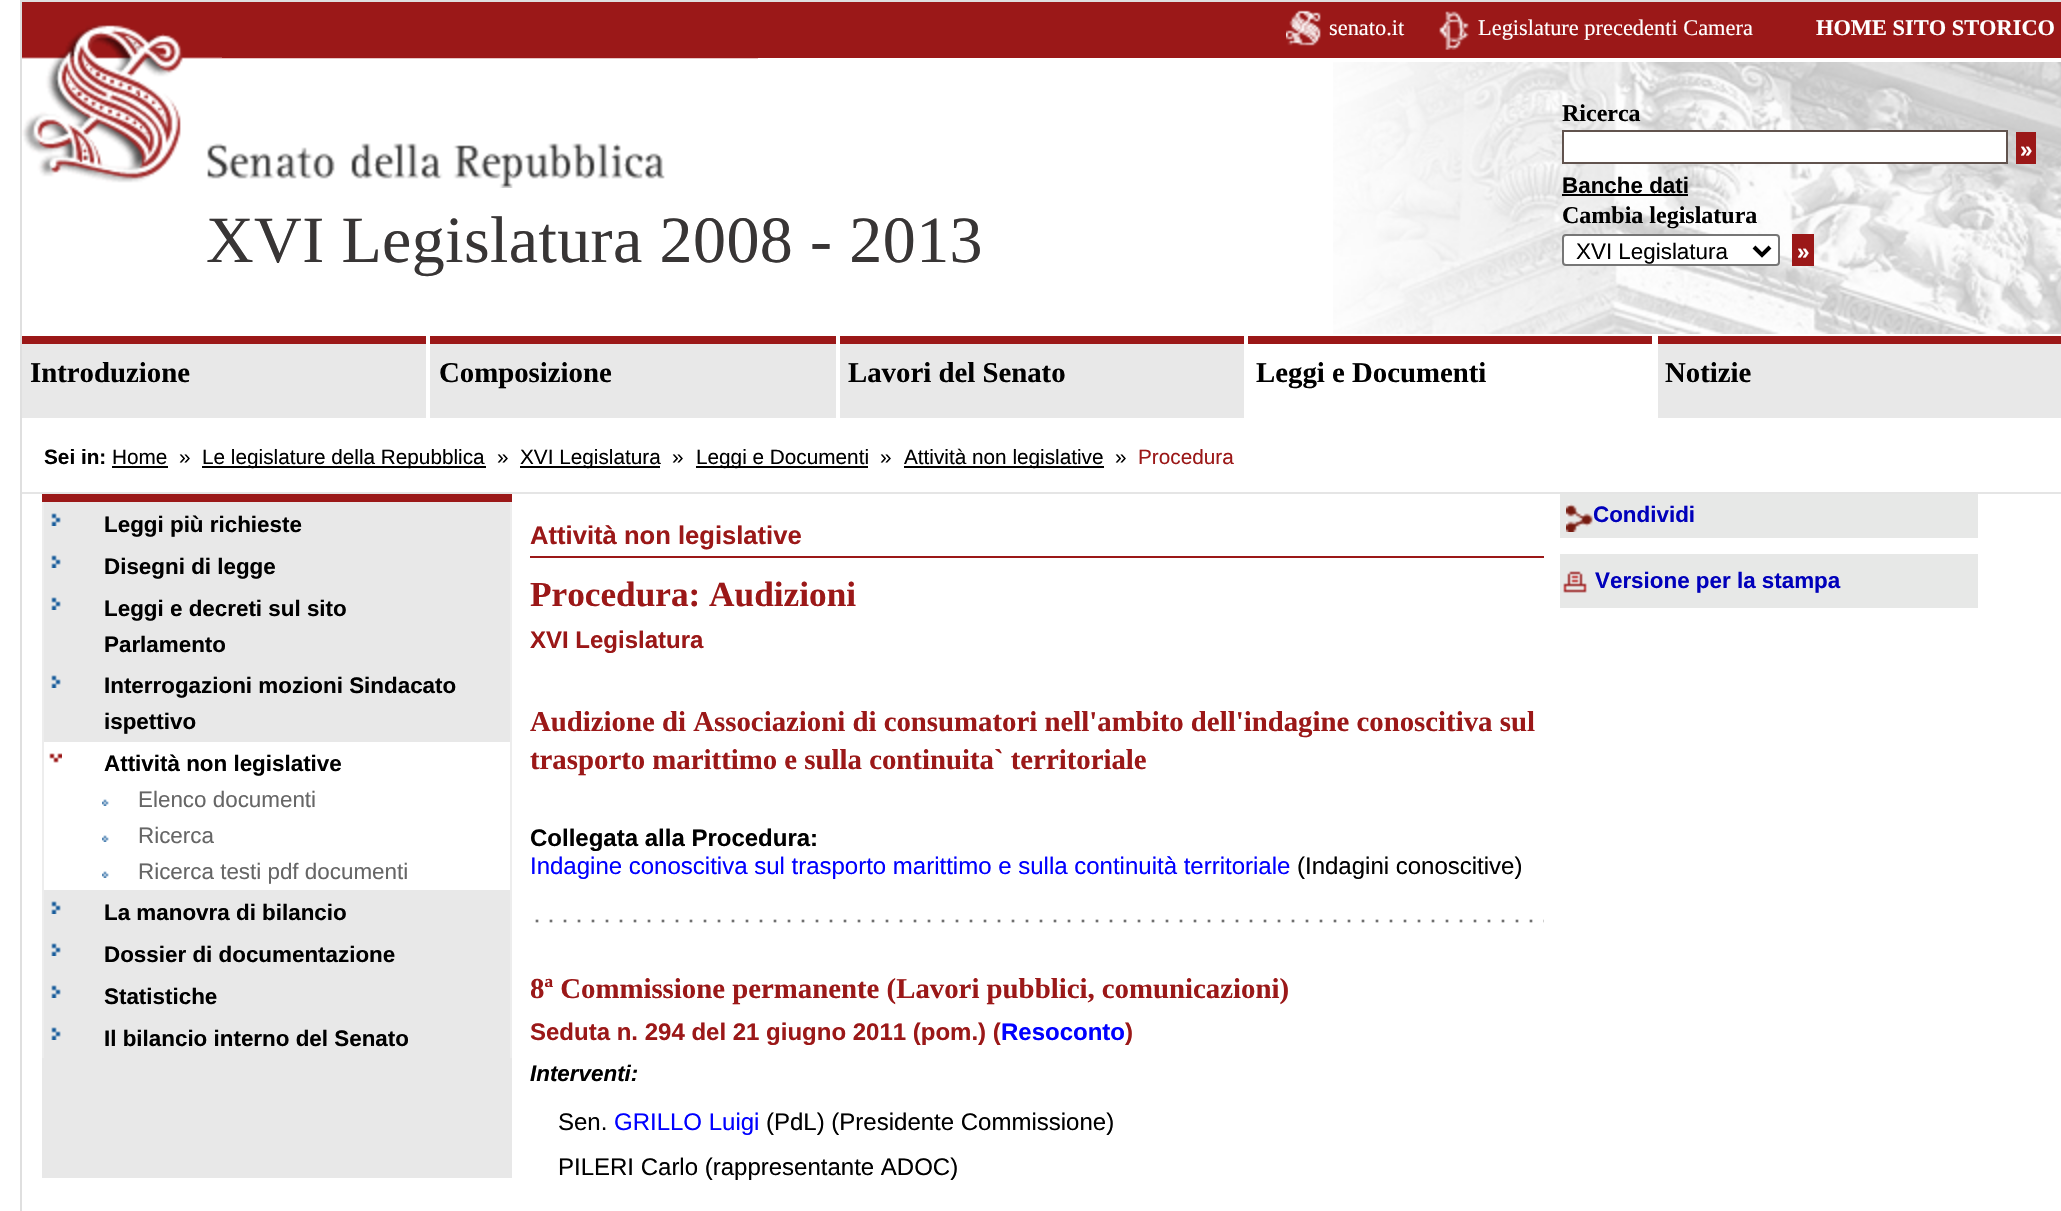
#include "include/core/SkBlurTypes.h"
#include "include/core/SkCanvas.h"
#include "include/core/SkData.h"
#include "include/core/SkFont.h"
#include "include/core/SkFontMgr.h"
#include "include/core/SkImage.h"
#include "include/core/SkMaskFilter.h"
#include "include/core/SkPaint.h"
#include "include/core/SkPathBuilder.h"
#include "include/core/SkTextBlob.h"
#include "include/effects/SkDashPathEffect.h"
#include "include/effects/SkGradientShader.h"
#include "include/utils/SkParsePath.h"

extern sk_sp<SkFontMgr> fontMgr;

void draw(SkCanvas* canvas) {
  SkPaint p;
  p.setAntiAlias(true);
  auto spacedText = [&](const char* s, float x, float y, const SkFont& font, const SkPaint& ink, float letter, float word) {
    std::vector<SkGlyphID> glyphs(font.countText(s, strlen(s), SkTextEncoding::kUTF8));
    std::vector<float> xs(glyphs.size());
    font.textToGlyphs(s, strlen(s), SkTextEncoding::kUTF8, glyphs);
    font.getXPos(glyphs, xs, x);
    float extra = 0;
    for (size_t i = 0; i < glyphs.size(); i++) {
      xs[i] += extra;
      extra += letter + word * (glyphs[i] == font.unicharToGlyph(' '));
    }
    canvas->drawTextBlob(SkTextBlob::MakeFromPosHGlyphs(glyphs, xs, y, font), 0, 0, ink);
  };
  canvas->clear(SK_ColorWHITE);
  p.setStyle(SkPaint::kStroke_Style);
  p.setStrokeWidth(2);
  p.setColor(SkColorSetRGB(223, 223, 223));
  canvas->drawRect(SkRect::MakeLTRB(21, 1, 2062, 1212), p);
  canvas->drawImageRect(SkImages::DeferredFromEncodedData(SkData::MakeFromFileName("images/1.png")), SkRect::MakeLTRB(1333, 62, 2061, 334), SkSamplingOptions());
  canvas->drawImageRect(SkImages::DeferredFromEncodedData(SkData::MakeFromFileName("images/2.png")), SkRect::MakeLTRB(22, 2, 758, 188), SkSamplingOptions());
  p.setStyle(SkPaint::kFill_Style);
  p.setColor(SkColorSetRGB(155, 24, 24));
  canvas->drawRect(SkRect::MakeLTRB(222, 2, 2061, 58), p);
  canvas->drawImageRect(SkImages::DeferredFromEncodedData(SkData::MakeFromFileName("images/3.png")), SkRect::MakeLTRB(1286, 10, 1321, 46), SkSamplingOptions());
  canvas->drawImageRect(SkImages::DeferredFromEncodedData(SkData::MakeFromFileName("images/4.png")), SkRect::MakeLTRB(1439, 11, 1469, 50), SkSamplingOptions());
  p.setColor(SK_ColorWHITE);
  canvas->drawRect(SkRect::MakeLTRB(1563, 131, 2007, 163), p);
  p.setStyle(SkPaint::kStroke_Style);
  p.setColor(SkColorSetRGB(97, 83, 78));
  canvas->drawRect(SkRect::MakeLTRB(1563, 131, 2007, 163), p);
  p.setStyle(SkPaint::kFill_Style);
  p.setColor(SkColorSetRGB(155, 24, 24));
  canvas->drawRect(SkRect::MakeLTRB(2016, 132, 2036, 164), p);
  p.setColor(SK_ColorBLACK);
  canvas->drawRect(SkRect::MakeLTRB(1562, 194, 1688, 196), p);
  p.setColor(SK_ColorWHITE);
  canvas->drawRoundRect(SkRect::MakeLTRB(1563, 235, 1779, 265), 3, 3, p);
  p.setStyle(SkPaint::kStroke_Style);
  p.setColor(SkColorSetRGB(118, 118, 118));
  canvas->drawRoundRect(SkRect::MakeLTRB(1563, 235, 1779, 265), 3, 3, p);
  p.setStrokeWidth(4);
  p.setColor(SK_ColorBLACK);
  canvas->drawPath(SkPathBuilder().moveTo(1754, 247).lineTo(1762, 255).lineTo(1770, 247).detach(), p);
  p.setStyle(SkPaint::kFill_Style);
  p.setColor(SkColorSetRGB(155, 24, 24));
  canvas->drawRect(SkRect::MakeLTRB(1792, 234, 1814, 266), p);
  p.setColor(SkColorSetRGB(232, 232, 232));
  canvas->drawRect(SkRect::MakeLTRB(22, 344, 426, 418), p);
  p.setColor(SkColorSetRGB(155, 24, 24));
  canvas->drawRect(SkRect::MakeLTRB(22, 336, 426, 344), p);
  p.setColor(SkColorSetRGB(232, 232, 232));
  canvas->drawRect(SkRect::MakeLTRB(430, 344, 836, 418), p);
  p.setColor(SkColorSetRGB(155, 24, 24));
  canvas->drawRect(SkRect::MakeLTRB(430, 336, 836, 344), p);
  p.setColor(SkColorSetRGB(232, 232, 232));
  canvas->drawRect(SkRect::MakeLTRB(840, 344, 1244, 418), p);
  p.setColor(SkColorSetRGB(155, 24, 24));
  canvas->drawRect(SkRect::MakeLTRB(840, 336, 1244, 344), p);
  canvas->drawRect(SkRect::MakeLTRB(1248, 336, 1652, 344), p);
  p.setColor(SkColorSetRGB(232, 232, 232));
  canvas->drawRect(SkRect::MakeLTRB(1658, 344, 2061, 418), p);
  p.setColor(SkColorSetRGB(155, 24, 24));
  canvas->drawRect(SkRect::MakeLTRB(1658, 336, 2061, 344), p);
  p.setColor(SkColorSetRGB(229, 229, 229));
  canvas->drawRect(SkRect::MakeLTRB(22, 492, 2061, 494), p);
  p.setColor(SK_ColorBLACK);
  canvas->drawRect(SkRect::MakeLTRB(112, 466, 168, 468), p);
  canvas->drawRect(SkRect::MakeLTRB(202, 466, 486, 468), p);
  canvas->drawRect(SkRect::MakeLTRB(520, 466, 660, 468), p);
  canvas->drawRect(SkRect::MakeLTRB(696, 466, 868, 468), p);
  canvas->drawRect(SkRect::MakeLTRB(904, 466, 1104, 468), p);
  p.setColor(SkColorSetRGB(232, 232, 232));
  canvas->drawRect(SkRect::MakeLTRB(42, 502, 512, 1178), p);
  p.setColor(SkColorSetRGB(155, 24, 24));
  canvas->drawRect(SkRect::MakeLTRB(42, 494, 512, 502), p);
  p.setColor(SkColorSetRGB(237, 237, 237));
  canvas->drawRect(SkRect::MakeLTRB(510, 502, 512, 1058), p);
  canvas->drawRect(SkRect::MakeLTRB(42, 502, 44, 1058), p);
  canvas->drawImageRect(SkImages::DeferredFromEncodedData(SkData::MakeFromFileName("images/5.png")), SkRect::MakeLTRB(51, 513, 61, 526), SkSamplingOptions());
  canvas->drawImageRect(SkImages::DeferredFromEncodedData(SkData::MakeFromFileName("images/5.png")), SkRect::MakeLTRB(51, 555, 61, 568), SkSamplingOptions());
  canvas->drawImageRect(SkImages::DeferredFromEncodedData(SkData::MakeFromFileName("images/5.png")), SkRect::MakeLTRB(51, 597, 61, 610), SkSamplingOptions());
  canvas->drawImageRect(SkImages::DeferredFromEncodedData(SkData::MakeFromFileName("images/5.png")), SkRect::MakeLTRB(51, 675, 61, 688), SkSamplingOptions());
  p.setColor(SK_ColorWHITE);
  canvas->drawRect(SkRect::MakeLTRB(44, 742, 510, 890), p);
  canvas->drawImageRect(SkImages::DeferredFromEncodedData(SkData::MakeFromFileName("images/6.png")), SkRect::MakeLTRB(49, 753, 62, 763), SkSamplingOptions());
  canvas->drawImageRect(SkImages::DeferredFromEncodedData(SkData::MakeFromFileName("images/7.png")), SkRect::MakeLTRB(102, 799, 109, 806), SkSamplingOptions());
  canvas->drawImageRect(SkImages::DeferredFromEncodedData(SkData::MakeFromFileName("images/7.png")), SkRect::MakeLTRB(102, 835, 109, 842), SkSamplingOptions());
  canvas->drawImageRect(SkImages::DeferredFromEncodedData(SkData::MakeFromFileName("images/7.png")), SkRect::MakeLTRB(102, 871, 109, 878), SkSamplingOptions());
  canvas->drawImageRect(SkImages::DeferredFromEncodedData(SkData::MakeFromFileName("images/5.png")), SkRect::MakeLTRB(51, 901, 61, 914), SkSamplingOptions());
  canvas->drawImageRect(SkImages::DeferredFromEncodedData(SkData::MakeFromFileName("images/5.png")), SkRect::MakeLTRB(51, 943, 61, 956), SkSamplingOptions());
  canvas->drawImageRect(SkImages::DeferredFromEncodedData(SkData::MakeFromFileName("images/5.png")), SkRect::MakeLTRB(51, 985, 61, 998), SkSamplingOptions());
  canvas->drawImageRect(SkImages::DeferredFromEncodedData(SkData::MakeFromFileName("images/5.png")), SkRect::MakeLTRB(51, 1027, 61, 1040), SkSamplingOptions());
  p.setColor(SkColorSetRGB(155, 24, 24));
  canvas->drawRect(SkRect::MakeLTRB(530, 556, 1544, 558), p);
  canvas->drawImageRect(SkImages::DeferredFromEncodedData(SkData::MakeFromFileName("images/8.png")), SkRect::MakeLTRB(535, 919, 1544, 923), SkSamplingOptions());
  p.setColor(SkColorSetRGB(231, 232, 231));
  canvas->drawRect(SkRect::MakeLTRB(1560, 494, 1978, 538), p);
  canvas->drawImageRect(SkImages::DeferredFromEncodedData(SkData::MakeFromFileName("images/9.png")), SkRect::MakeLTRB(1566, 503, 1593, 532), SkSamplingOptions());
  canvas->drawRect(SkRect::MakeLTRB(1560, 554, 1978, 608), p);
  canvas->drawImageRect(SkImages::DeferredFromEncodedData(SkData::MakeFromFileName("images/10.png")), SkRect::MakeLTRB(1563, 571, 1587, 593), SkSamplingOptions());
  SkFont font1(fontMgr->matchFamilyStyle("Liberation Serif", SkFontStyle::Normal()), 66);
  font1.setSubpixel(true);
  p.setColor(SkColorSetRGB(56, 53, 53));
  spacedText("XVI Legislatura 2008 - 2013", 206, 262, font1, p, 0.4f, 0);
  SkFont font2(fontMgr->matchFamilyStyle("Liberation Serif", SkFontStyle::Normal()), 22.4f);
  font2.setSubpixel(true);
  p.setColor(SK_ColorWHITE);
  canvas->drawString("senato.it", 1329, 35, font2, p);
  canvas->drawString("Legislature precedenti Camera", 1478, 35, font2, p);
  SkFont font3(fontMgr->matchFamilyStyle("Liberation Serif", SkFontStyle::Bold()), 22.4f);
  font3.setSubpixel(true);
  canvas->drawString("HOME SITO STORICO", 1816, 35, font3, p);
  SkFont font4(fontMgr->matchFamilyStyle("Liberation Serif", SkFontStyle::Bold()), 24);
  font4.setSubpixel(true);
  p.setColor(SK_ColorBLACK);
  canvas->drawString("Ricerca", 1562, 121, font4, p);
  SkFont font5(fontMgr->matchFamilyStyle("Liberation Sans", SkFontStyle::Bold()), 22.4f);
  font5.setSubpixel(true);
  p.setColor(SK_ColorWHITE);
  canvas->drawString("»", 2020, 157, font5, p);
  p.setColor(SK_ColorBLACK);
  canvas->drawString("Banche dati", 1562, 193, font5, p);
  canvas->drawString("Cambia legislatura", 1562, 223, font4, p);
  SkFont font6(fontMgr->matchFamilyStyle("Liberation Sans", SkFontStyle::Normal()), 22.4f);
  font6.setSubpixel(true);
  canvas->drawString("XVI Legislatura", 1576, 259, font6, p);
  p.setColor(SK_ColorWHITE);
  canvas->drawString("»", 1797, 259, font5, p);
  SkFont font7(fontMgr->matchFamilyStyle("Liberation Serif", SkFontStyle::Bold()), 28.8f);
  font7.setSubpixel(true);
  p.setColor(SK_ColorBLACK);
  canvas->drawString("Introduzione", 30, 382, font7, p);
  canvas->drawString("Composizione", 439, 382, font7, p);
  canvas->drawString("Lavori del Senato", 848, 382, font7, p);
  canvas->drawString("Leggi e Documenti", 1256, 382, font7, p);
  canvas->drawString("Notizie", 1665, 382, font7, p);
  SkFont font8(fontMgr->matchFamilyStyle("Liberation Sans", SkFontStyle::Bold()), 20.75f);
  font8.setSubpixel(true);
  canvas->drawString("Sei in:", 44, 464, font8, p);
  SkFont font9(fontMgr->matchFamilyStyle("Liberation Sans", SkFontStyle::Normal()), 20.75f);
  font9.setSubpixel(true);
  canvas->drawString("Home", 112, 464, font9, p);
  canvas->drawString("»", 179, 464, font9, p);
  canvas->drawString("Le legislature della Repubblica", 202, 464, font9, p);
  canvas->drawString("»", 497, 464, font9, p);
  canvas->drawString("XVI Legislatura", 520, 464, font9, p);
  canvas->drawString("»", 672, 464, font9, p);
  canvas->drawString("Leggi e Documenti", 696, 464, font9, p);
  canvas->drawString("»", 880, 464, font9, p);
  canvas->drawString("Attività non legislative", 904, 464, font9, p);
  canvas->drawString("»", 1115, 464, font9, p);
  p.setColor(SkColorSetRGB(155, 24, 24));
  canvas->drawString("Procedura", 1138, 464, font9, p);
  p.setColor(SK_ColorBLACK);
  canvas->drawString("Leggi più richieste", 104, 532, font5, p);
  canvas->drawString("Disegni di legge", 104, 574, font5, p);
  canvas->drawString("Leggi e decreti sul sito", 104, 616, font5, p);
  canvas->drawString("Parlamento", 104, 652, font5, p);
  canvas->drawString("Interrogazioni mozioni Sindacato", 104, 693, font5, p);
  canvas->drawString("ispettivo", 104, 729, font5, p);
  canvas->drawString("Attività non legislative", 104, 771, font5, p);
  p.setColor(SkColorSetRGB(102, 102, 102));
  canvas->drawString("Elenco documenti", 138, 807, font6, p);
  canvas->drawString("Ricerca", 138, 843, font6, p);
  canvas->drawString("Ricerca testi pdf documenti", 138, 879, font6, p);
  p.setColor(SK_ColorBLACK);
  canvas->drawString("La manovra di bilancio", 104, 920, font5, p);
  canvas->drawString("Dossier di documentazione", 104, 962, font5, p);
  canvas->drawString("Statistiche", 104, 1004, font5, p);
  canvas->drawString("Il bilancio interno del Senato", 104, 1046, font5, p);
  SkFont font10(fontMgr->matchFamilyStyle("Liberation Sans", SkFontStyle::Bold()), 25.6f);
  font10.setSubpixel(true);
  p.setColor(SkColorSetRGB(155, 24, 24));
  canvas->drawString("Attività non legislative", 530, 544, font10, p);
  SkFont font11(fontMgr->matchFamilyStyle("Liberation Serif", SkFontStyle::Bold()), 35.25f);
  font11.setSubpixel(true);
  canvas->drawString("Procedura: Audizioni", 530, 606, font11, p);
  SkFont font12(fontMgr->matchFamilyStyle("Liberation Sans", SkFontStyle::Bold()), 24);
  font12.setSubpixel(true);
  canvas->drawString("XVI Legislatura", 530, 648, font12, p);
  canvas->drawString("Audizione di Associazioni di consumatori nell'ambito dell'indagine conoscitiva sul", 530, 731, font7, p);
  canvas->drawString("trasporto marittimo e sulla continuita` territoriale", 530, 769, font7, p);
  p.setColor(SK_ColorBLACK);
  canvas->drawString("Collegata alla Procedura:", 530, 846, font12, p);
  SkFont font13(fontMgr->matchFamilyStyle("Liberation Sans", SkFontStyle::Normal()), 24);
  font13.setSubpixel(true);
  p.setColor(SkColorSetRGB(0, 0, 255));
  canvas->drawString("Indagine conoscitiva sul trasporto marittimo e sulla continuità territoriale", 530, 874, font13, p);
  p.setColor(SK_ColorBLACK);
  canvas->drawString("(Indagini conoscitive)", 1297, 874, font13, p);
  p.setColor(SkColorSetRGB(155, 24, 24));
  canvas->drawString("8ª Commissione permanente (Lavori pubblici, comunicazioni)", 530, 998, font7, p);
  canvas->drawString("Seduta n. 294 del 21 giugno 2011 (pom.) (", 530, 1040, font12, p);
  p.setColor(SkColorSetRGB(0, 0, 255));
  canvas->drawString("Resoconto", 1001, 1040, font12, p);
  p.setColor(SkColorSetRGB(155, 24, 24));
  canvas->drawString(")", 1125, 1040, font12, p);
  SkFont font14(fontMgr->matchFamilyStyle("Liberation Sans", SkFontStyle::BoldItalic()), 22.4f);
  font14.setSubpixel(true);
  p.setColor(SK_ColorBLACK);
  canvas->drawString("Interventi:", 530, 1081, font14, p);
  canvas->drawString("Sen.", 558, 1130, font13, p);
  p.setColor(SkColorSetRGB(0, 0, 255));
  canvas->drawString("GRILLO Luigi", 614, 1130, font13, p);
  p.setColor(SK_ColorBLACK);
  canvas->drawString("(PdL) (Presidente Commissione)", 766, 1130, font13, p);
  canvas->drawString("PILERI Carlo (rappresentante ADOC)", 558, 1175, font13, p);
  p.setColor(SkColorSetRGB(0, 0, 187));
  canvas->drawString("Condividi", 1593, 522, font5, p);
  canvas->drawString("Versione per la stampa", 1595, 588, font5, p);
}
